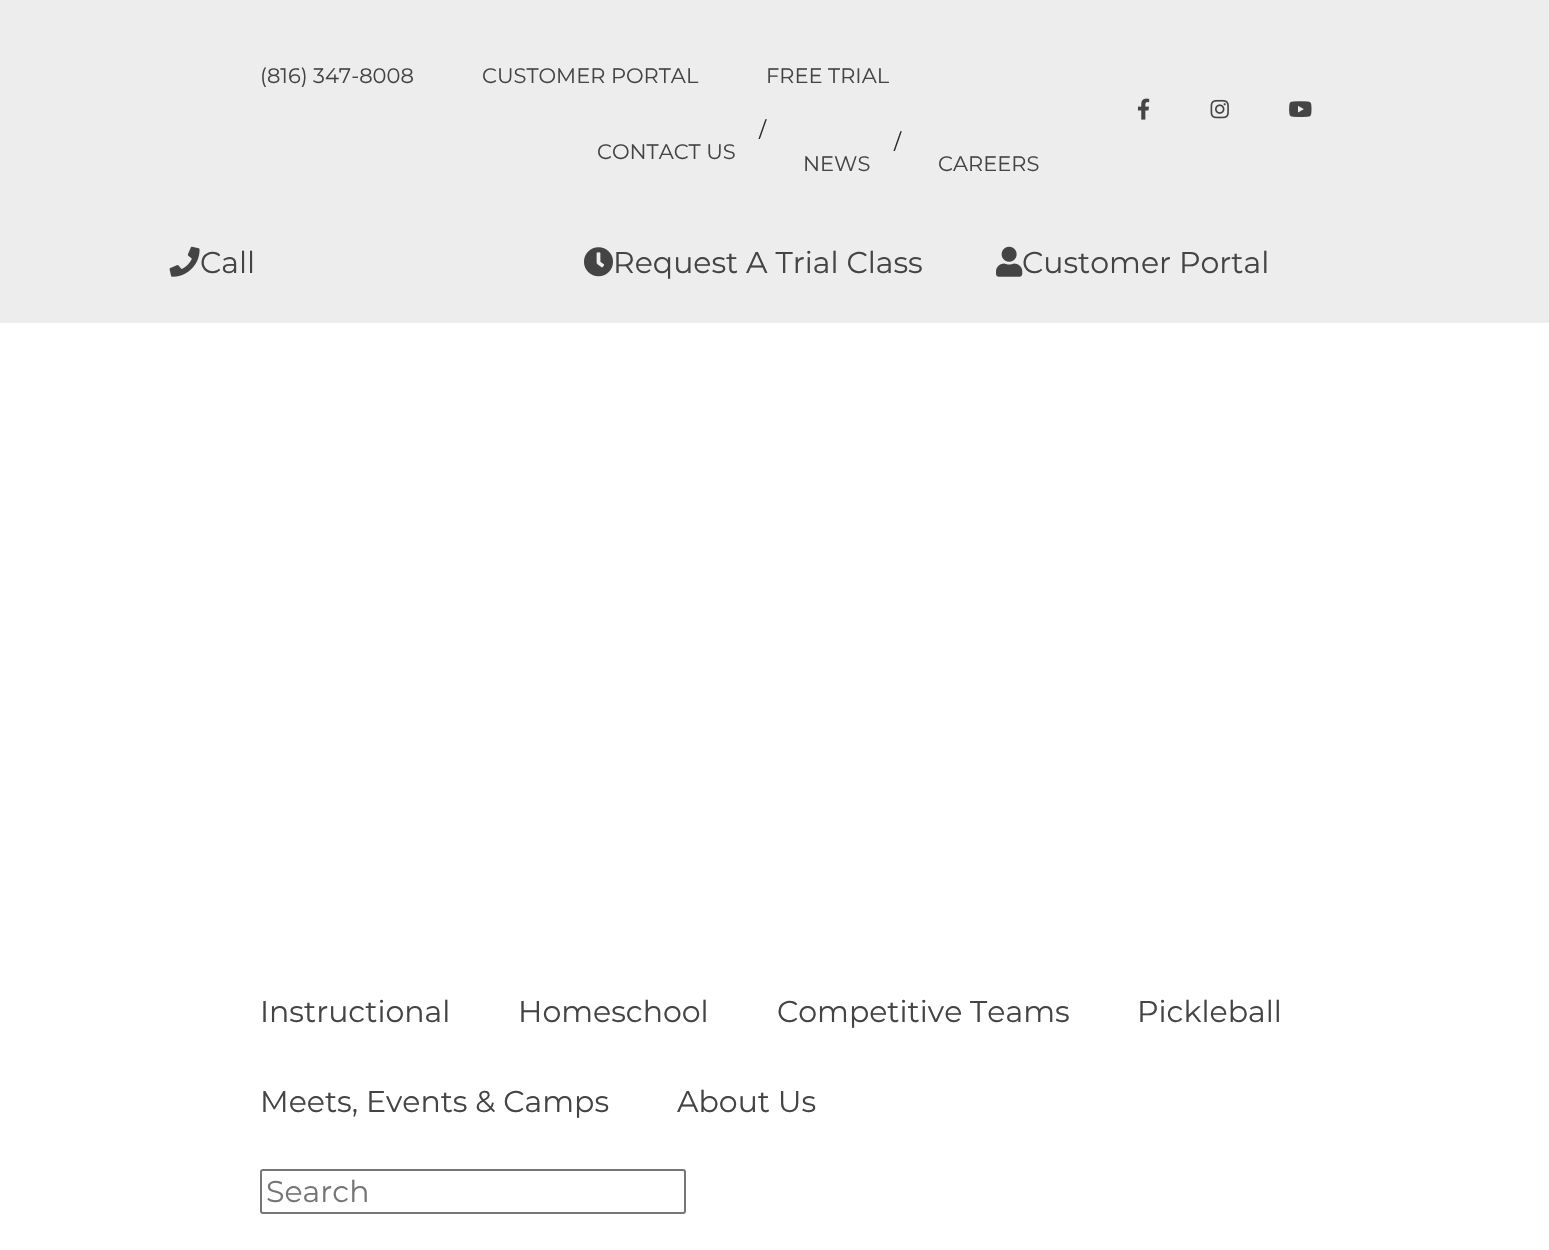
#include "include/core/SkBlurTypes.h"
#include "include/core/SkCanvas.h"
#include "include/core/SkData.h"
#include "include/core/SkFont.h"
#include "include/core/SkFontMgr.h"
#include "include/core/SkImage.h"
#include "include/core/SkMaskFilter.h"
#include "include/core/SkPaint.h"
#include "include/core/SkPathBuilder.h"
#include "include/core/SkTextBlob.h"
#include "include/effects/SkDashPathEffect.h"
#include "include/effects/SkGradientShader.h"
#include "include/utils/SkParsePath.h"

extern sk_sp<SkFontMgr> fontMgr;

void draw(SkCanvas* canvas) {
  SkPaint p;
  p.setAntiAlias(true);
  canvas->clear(SkColorSetRGB(237, 237, 237));
  canvas->drawImageRect(SkImages::DeferredFromEncodedData(SkData::MakeFromFileName("images/1.png")), SkRect::MakeLTRB(1137, 98, 1150, 120), SkSamplingOptions());
  canvas->drawImageRect(SkImages::DeferredFromEncodedData(SkData::MakeFromFileName("images/2.png")), SkRect::MakeLTRB(1210, 99, 1229, 119), SkSamplingOptions());
  canvas->drawImageRect(SkImages::DeferredFromEncodedData(SkData::MakeFromFileName("images/3.png")), SkRect::MakeLTRB(1289, 101, 1312, 117), SkSamplingOptions());
  canvas->drawImageRect(SkImages::DeferredFromEncodedData(SkData::MakeFromFileName("images/4.png")), SkRect::MakeLTRB(169, 246, 200, 277), SkSamplingOptions());
  canvas->drawImageRect(SkImages::DeferredFromEncodedData(SkData::MakeFromFileName("images/5.png")), SkRect::MakeLTRB(584, 247, 613, 277), SkSamplingOptions());
  canvas->drawImageRect(SkImages::DeferredFromEncodedData(SkData::MakeFromFileName("images/6.png")), SkRect::MakeLTRB(996, 246, 1023, 277), SkSamplingOptions());
  p.setColor(SK_ColorWHITE);
  canvas->drawRect(SkRect::MakeLTRB(0, 323, 1549, 1250), p);
  p.setStyle(SkPaint::kStroke_Style);
  p.setStrokeWidth(2);
  p.setColor(SkColorSetRGB(118, 118, 118));
  canvas->drawRoundRect(SkRect::MakeLTRB(261, 1170, 685, 1213), 2, 2, p);
  SkFont font1(fontMgr->matchFamilyStyle("Montserrat", SkFontStyle::Normal()), 21);
  font1.setSubpixel(true);
  p.setStyle(SkPaint::kFill_Style);
  p.setColor(SkColorSetRGB(68, 68, 68));
  canvas->drawString("(816) 347-8008", 260, 83, font1, p);
  canvas->drawString("CUSTOMER PORTAL", 482, 83, font1, p);
  canvas->drawString("FREE TRIAL", 766, 83, font1, p);
  p.setColor(SkColorSetRGB(41, 43, 44));
  canvas->drawString("/", 759, 137, font1, p);
  p.setColor(SkColorSetRGB(68, 68, 68));
  canvas->drawString("CONTACT US", 597, 159, font1, p);
  p.setColor(SkColorSetRGB(41, 43, 44));
  canvas->drawString("/", 894, 149, font1, p);
  p.setColor(SkColorSetRGB(68, 68, 68));
  canvas->drawString("NEWS", 803, 171, font1, p);
  canvas->drawString("CAREERS", 938, 171, font1, p);
  SkFont font2(fontMgr->matchFamilyStyle("Montserrat", SkFontStyle::Normal()), 30);
  font2.setSubpixel(true);
  canvas->drawString("Call", 200, 273, font2, p);
  canvas->drawString("Request A Trial Class", 613, 273, font2, p);
  canvas->drawString("Customer Portal", 1022, 273, font2, p);
  canvas->drawString("Instructional", 260, 1022, font2, p);
  canvas->drawString("Homeschool", 518, 1022, font2, p);
  canvas->drawString("Competitive Teams", 777, 1022, font2, p);
  canvas->drawString("Pickleball", 1137, 1022, font2, p);
  canvas->drawString("Meets, Events & Camps", 260, 1112, font2, p);
  canvas->drawString("About Us", 677, 1112, font2, p);
  p.setColor(SkColorSetRGB(117, 117, 117));
  canvas->drawString("Search", 266, 1202, font2, p);
}
